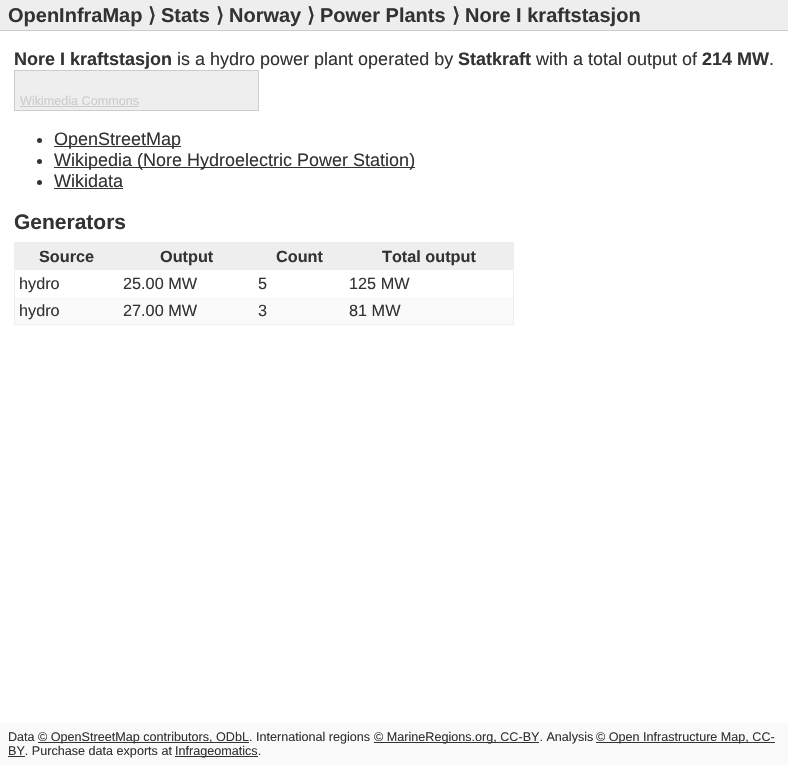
#include "include/core/SkBlurTypes.h"
#include "include/core/SkCanvas.h"
#include "include/core/SkData.h"
#include "include/core/SkFont.h"
#include "include/core/SkFontMgr.h"
#include "include/core/SkImage.h"
#include "include/core/SkMaskFilter.h"
#include "include/core/SkPaint.h"
#include "include/core/SkPathBuilder.h"
#include "include/core/SkTextBlob.h"
#include "include/effects/SkDashPathEffect.h"
#include "include/effects/SkGradientShader.h"
#include "include/utils/SkParsePath.h"

extern sk_sp<SkFontMgr> fontMgr;

void draw(SkCanvas* canvas) {
  SkPaint p;
  p.setAntiAlias(true);
  canvas->clear(SK_ColorWHITE);
  p.setColor(SkColorSetRGB(238, 238, 238));
  canvas->drawRect(SkRect::MakeLTRB(0, 0, 788, 30), p);
  p.setColor(SkColorSetRGB(204, 204, 204));
  canvas->drawRect(SkRect::MakeLTRB(0, 30, 788, 31), p);
  p.setColor(SkColorSetRGB(238, 238, 238));
  canvas->drawRect(SkRect::MakeLTRB(14.5f, 70.5f, 258.5f, 110.5f), p);
  p.setStyle(SkPaint::kStroke_Style);
  p.setStrokeWidth(1);
  p.setColor(SkColorSetRGB(204, 204, 204));
  canvas->drawRect(SkRect::MakeLTRB(14.5f, 70.5f, 258.5f, 110.5f), p);
  p.setStyle(SkPaint::kFill_Style);
  canvas->drawRect(SkRect::MakeLTRB(20, 106, 139, 107), p);
  p.setColor(SkColorSetRGB(51, 51, 51));
  canvas->drawCircle(39.5f, 140.5f, 2.5f, p);
  canvas->drawRect(SkRect::MakeLTRB(54, 146, 181, 147), p);
  canvas->drawCircle(39.5f, 161.5f, 2.5f, p);
  canvas->drawRect(SkRect::MakeLTRB(54, 167, 415, 168), p);
  canvas->drawCircle(39.5f, 182.5f, 2.5f, p);
  canvas->drawRect(SkRect::MakeLTRB(54, 188, 123, 189), p);
  p.setColor(SkColorSetRGB(238, 238, 238));
  canvas->drawRect(SkRect::MakeLTRB(14, 242, 514, 243), p);
  canvas->drawRect(SkRect::MakeLTRB(513, 242, 514, 325), p);
  canvas->drawRect(SkRect::MakeLTRB(14, 324, 514, 325), p);
  canvas->drawRect(SkRect::MakeLTRB(14, 242, 15, 325), p);
  canvas->drawRect(SkRect::MakeLTRB(15, 243, 513, 270), p);
  p.setColor(SkColorSetRGB(250, 250, 250));
  canvas->drawRect(SkRect::MakeLTRB(15, 297, 513, 324), p);
  canvas->drawRect(SkRect::MakeLTRB(0, 722, 788, 766), p);
  p.setColor(SkColorSetRGB(51, 51, 51));
  canvas->drawRect(SkRect::MakeLTRB(38, 742, 249, 743), p);
  canvas->drawRect(SkRect::MakeLTRB(374, 742, 539, 743), p);
  canvas->drawRect(SkRect::MakeLTRB(596, 742, 775, 743), p);
  canvas->drawRect(SkRect::MakeLTRB(8, 756, 25, 757), p);
  canvas->drawRect(SkRect::MakeLTRB(175, 756, 258, 757), p);
  SkFont font1(fontMgr->matchFamilyStyle("Liberation Sans", SkFontStyle::Bold()), 20);
  font1.setSubpixel(true);
  canvas->drawString("OpenInfraMap", 8, 22, font1, p);
  SkFont font2(fontMgr->matchFamilyStyle("DejaVu Sans", SkFontStyle::Bold()), 20);
  font2.setSubpixel(true);
  canvas->drawString("⟩", 148, 22, font2, p);
  canvas->drawString("Stats", 161, 22, font1, p);
  canvas->drawString("⟩", 216, 22, font2, p);
  canvas->drawString("Norway", 229, 22, font1, p);
  canvas->drawString("⟩", 307, 22, font2, p);
  canvas->drawString("Power Plants", 320, 22, font1, p);
  canvas->drawString("⟩", 452, 22, font2, p);
  canvas->drawString("Nore I kraftstasjon", 465, 22, font1, p);
  SkFont font3(fontMgr->matchFamilyStyle("Liberation Sans", SkFontStyle::Bold()), 18);
  font3.setSubpixel(true);
  canvas->drawString("Nore I kraftstasjon", 14, 65, font3, p);
  SkFont font4(fontMgr->matchFamilyStyle("Liberation Sans", SkFontStyle::Normal()), 18);
  font4.setSubpixel(true);
  canvas->drawString("is a hydro power plant operated by", 177, 65, font4, p);
  canvas->drawString("Statkraft", 458, 65, font3, p);
  canvas->drawString("with a total output of", 536, 65, font4, p);
  canvas->drawString("214 MW", 702, 65, font3, p);
  canvas->drawString(".", 769, 65, font4, p);
  SkFont font5(fontMgr->matchFamilyStyle("Liberation Sans", SkFontStyle::Normal()), 12.6f);
  font5.setSubpixel(true);
  p.setColor(SkColorSetRGB(204, 204, 204));
  canvas->drawString("Wikimedia Commons", 20, 105, font5, p);
  p.setColor(SkColorSetRGB(51, 51, 51));
  canvas->drawString("OpenStreetMap", 54, 145, font4, p);
  canvas->drawString("Wikipedia (Nore Hydroelectric Power Station)", 54, 166, font4, p);
  canvas->drawString("Wikidata", 54, 187, font4, p);
  SkFont font6(fontMgr->matchFamilyStyle("Liberation Sans", SkFontStyle::Bold()), 21);
  font6.setSubpixel(true);
  canvas->drawString("Generators", 14, 229, font6, p);
  SkFont font7(fontMgr->matchFamilyStyle("Liberation Sans", SkFontStyle::Bold()), 16.25f);
  font7.setSubpixel(true);
  canvas->drawString("Source", 39, 262, font7, p);
  canvas->drawString("Output", 160, 262, font7, p);
  canvas->drawString("Count", 276, 262, font7, p);
  canvas->drawString("Total output", 382, 262, font7, p);
  SkFont font8(fontMgr->matchFamilyStyle("Liberation Sans", SkFontStyle::Normal()), 16.25f);
  font8.setSubpixel(true);
  canvas->drawString("hydro", 19, 289, font8, p);
  canvas->drawString("25.00 MW", 123, 289, font8, p);
  canvas->drawString("5", 258, 289, font8, p);
  canvas->drawString("125 MW", 349, 289, font8, p);
  canvas->drawString("hydro", 19, 316, font8, p);
  canvas->drawString("27.00 MW", 123, 316, font8, p);
  canvas->drawString("3", 258, 316, font8, p);
  canvas->drawString("81 MW", 349, 316, font8, p);
  canvas->drawString("Data", 8, 741, font5, p);
  canvas->drawString("© OpenStreetMap contributors, ODbL. International regions", 38, 741, font5, p);
  canvas->drawString("© MarineRegions.org, CC-BY. Analysis", 374, 741, font5, p);
  canvas->drawString("© Open Infrastructure Map, CC-", 596, 741, font5, p);
  canvas->drawString("BY. Purchase data exports at", 8, 755, font5, p);
  canvas->drawString("Infrageomatics.", 175, 755, font5, p);
}
